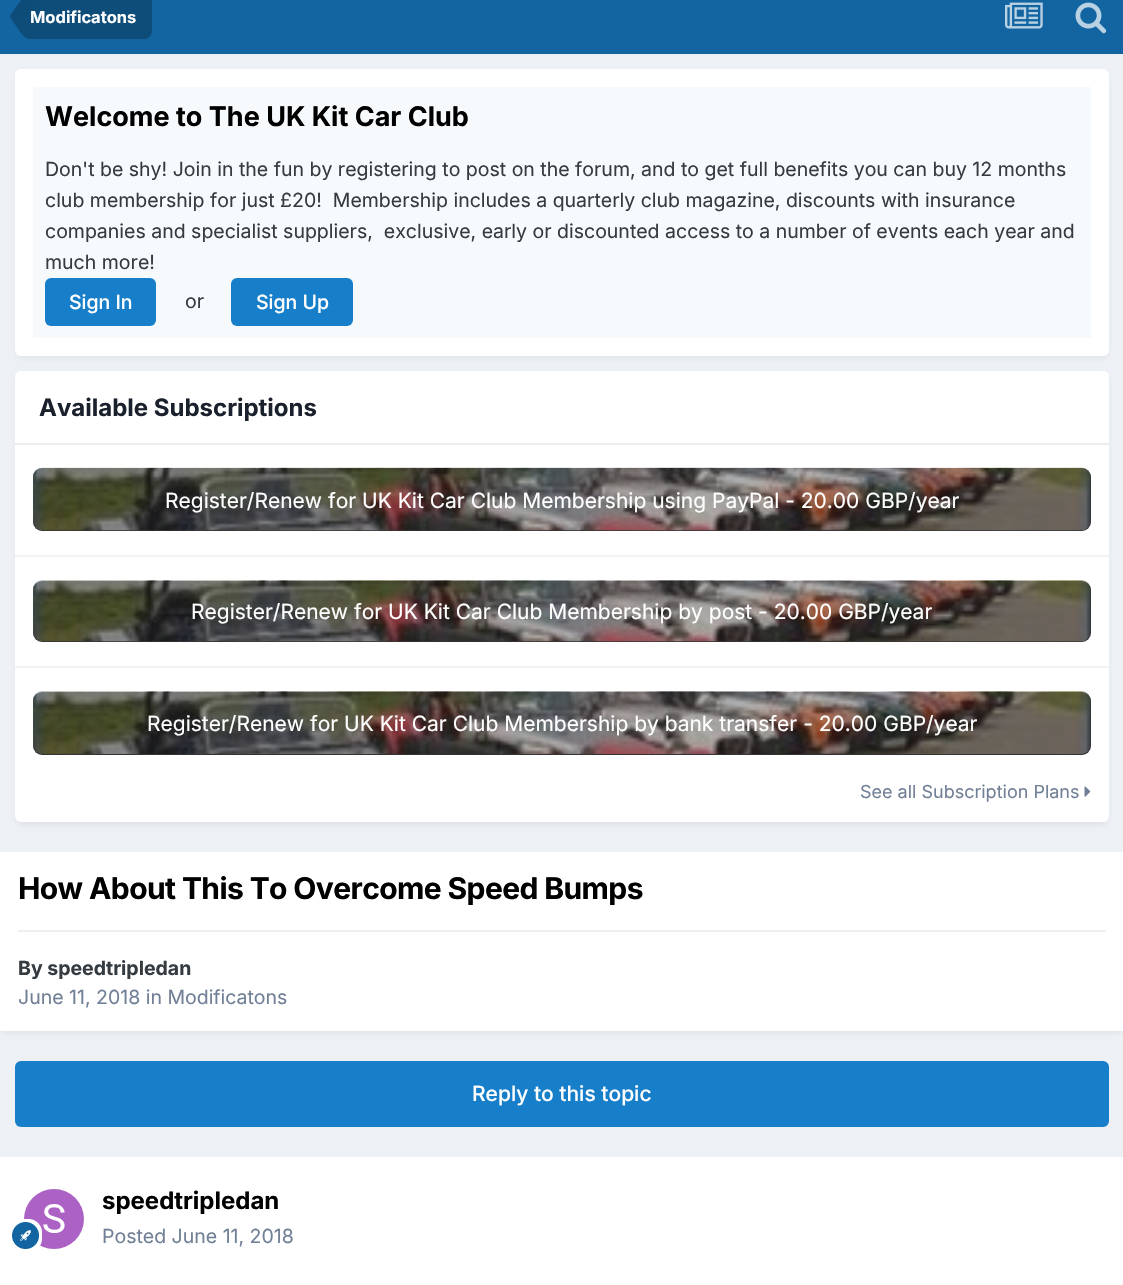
#include "include/core/SkBlurTypes.h"
#include "include/core/SkCanvas.h"
#include "include/core/SkData.h"
#include "include/core/SkFont.h"
#include "include/core/SkFontMgr.h"
#include "include/core/SkImage.h"
#include "include/core/SkMaskFilter.h"
#include "include/core/SkPaint.h"
#include "include/core/SkPathBuilder.h"
#include "include/core/SkTextBlob.h"
#include "include/effects/SkDashPathEffect.h"
#include "include/effects/SkGradientShader.h"
#include "include/utils/SkParsePath.h"

extern sk_sp<SkFontMgr> fontMgr;

void draw(SkCanvas* canvas) {
  SkPaint p;
  p.setAntiAlias(true);
  auto spacedText = [&](const char* s, float x, float y, const SkFont& font, const SkPaint& ink, float letter, float word) {
    std::vector<SkGlyphID> glyphs(font.countText(s, strlen(s), SkTextEncoding::kUTF8));
    std::vector<float> xs(glyphs.size());
    font.textToGlyphs(s, strlen(s), SkTextEncoding::kUTF8, glyphs);
    font.getXPos(glyphs, xs, x);
    float extra = 0;
    for (size_t i = 0; i < glyphs.size(); i++) {
      xs[i] += extra;
      extra += letter + word * (glyphs[i] == font.unicharToGlyph(' '));
    }
    canvas->drawTextBlob(SkTextBlob::MakeFromPosHGlyphs(glyphs, xs, y, font), 0, 0, ink);
  };
  canvas->clear(SkColorSetRGB(237, 240, 244));
  p.setColor(SkColorSetRGB(18, 101, 161));
  canvas->drawRect(SkRect::MakeLTRB(0, 0, 1123, 54), p);
  p.setColor(SkColorSetRGB(14, 76, 121));
  canvas->drawPath(SkPathBuilder().moveTo(30, -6).lineTo(144, -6).cubicTo(148.5f, -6, 152, -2.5f, 152, 2).lineTo(152, 31).cubicTo(152, 35.5f, 148.5f, 39, 144, 39).lineTo(30, 39).close().detach(), p);
  canvas->drawPath(SkPathBuilder().moveTo(10.5f, 18).lineTo(10, 16.5f).lineTo(30, 16.5f).lineTo(30, 39).cubicTo(27, 39, 23.5f, 37, 21, 33).close().detach(), p);
  p.setColor(SkColorSetARGB(64, 0, 0, 0));
  canvas->drawPath(SkPathBuilder().moveTo(30, -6).lineTo(30, 16.5f).lineTo(10, 16.5f).lineTo(10.5f, 15).lineTo(21, 0).cubicTo(23.5f, -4, 27, -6, 30, -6).close().detach(), p);
  canvas->drawImageRect(SkImages::DeferredFromEncodedData(SkData::MakeFromFileName("images/1.png")), SkRect::MakeLTRB(1005, 2, 1043, 29), SkSamplingOptions());
  canvas->drawImageRect(SkImages::DeferredFromEncodedData(SkData::MakeFromFileName("images/2.png")), SkRect::MakeLTRB(1075, 2, 1107, 34), SkSamplingOptions());
  p.setColor(SkColorSetARGB(26, 45, 55, 72));
  p.setMaskFilter(SkMaskFilter::MakeBlur(kNormal_SkBlurStyle, 3));
  canvas->drawRoundRect(SkRect::MakeLTRB(17, 74, 1107, 357), 5, 5, p);
  p.setMaskFilter(nullptr);
  p.setColor(SK_ColorWHITE);
  canvas->drawRoundRect(SkRect::MakeLTRB(15, 69, 1109, 356), 6, 6, p);
  p.setColor(SkColorSetRGB(247, 250, 252));
  canvas->drawRect(SkRect::MakeLTRB(33, 87, 1091, 338), p);
  p.setColor(SkColorSetRGB(23, 126, 201));
  canvas->drawRoundRect(SkRect::MakeLTRB(45, 278, 156, 326), 6, 6, p);
  canvas->drawRoundRect(SkRect::MakeLTRB(231, 278, 353, 326), 6, 6, p);
  p.setColor(SkColorSetARGB(26, 45, 55, 72));
  p.setMaskFilter(SkMaskFilter::MakeBlur(kNormal_SkBlurStyle, 3));
  canvas->drawRoundRect(SkRect::MakeLTRB(17, 375, 1107, 824), 5, 5, p);
  p.setMaskFilter(nullptr);
  p.setColor(SK_ColorWHITE);
  canvas->drawRoundRect(SkRect::MakeLTRB(15, 371, 1109, 822), 6, 6, p);
  canvas->drawPath(SkPathBuilder().moveTo(21, 371).lineTo(1103, 371).cubicTo(1106.5f, 371, 1109, 373.5f, 1109, 377).lineTo(1109, 444).lineTo(15, 444).lineTo(15, 377).cubicTo(15, 373.5f, 17.5f, 371, 21, 371).close().detach(), p);
  p.setColor(SkColorSetRGB(234, 236, 239));
  canvas->drawRect(SkRect::MakeLTRB(15, 443, 1109, 445), p);
  p.setColor(SkColorSetRGB(241, 242, 245));
  canvas->drawRect(SkRect::MakeLTRB(15, 555, 1109, 557), p);
  p.setColor(SkColorSetRGB(51, 51, 51));
  canvas->drawRoundRect(SkRect::MakeLTRB(33, 468, 1091, 531), 9, 9, p);
  canvas->drawImageRect(SkImages::DeferredFromEncodedData(SkData::MakeFromFileName("images/3.png")), SkRect::MakeLTRB(33, 467, 1091, 531), SkSamplingOptions());
  p.setColor(SkColorSetRGB(241, 242, 245));
  canvas->drawRect(SkRect::MakeLTRB(15, 666, 1109, 668), p);
  p.setColor(SkColorSetRGB(51, 51, 51));
  canvas->drawRoundRect(SkRect::MakeLTRB(33, 581, 1091, 642), 9, 9, p);
  canvas->drawImageRect(SkImages::DeferredFromEncodedData(SkData::MakeFromFileName("images/4.png")), SkRect::MakeLTRB(33, 580, 1091, 642), SkSamplingOptions());
  canvas->drawRoundRect(SkRect::MakeLTRB(33, 692, 1091, 755), 9, 9, p);
  canvas->drawImageRect(SkImages::DeferredFromEncodedData(SkData::MakeFromFileName("images/5.png")), SkRect::MakeLTRB(33, 691, 1091, 754), SkSamplingOptions());
  canvas->drawImageRect(SkImages::DeferredFromEncodedData(SkData::MakeFromFileName("images/6.png")), SkRect::MakeLTRB(1084, 786, 1091, 797), SkSamplingOptions());
  p.setColor(SkColorSetARGB(26, 45, 55, 72));
  p.setMaskFilter(SkMaskFilter::MakeBlur(kNormal_SkBlurStyle, 3));
  canvas->drawRect(SkRect::MakeLTRB(2, 857, 1122, 1032), p);
  p.setMaskFilter(nullptr);
  p.setColor(SK_ColorWHITE);
  canvas->drawRect(SkRect::MakeLTRB(0, 852, 1123, 1031), p);
  p.setColor(SkColorSetRGB(239, 239, 240));
  canvas->drawRect(SkRect::MakeLTRB(18, 930, 1106, 932), p);
  p.setColor(SkColorSetRGB(23, 126, 201));
  canvas->drawRoundRect(SkRect::MakeLTRB(15, 1061, 1109, 1127), 6, 6, p);
  p.setColor(SK_ColorWHITE);
  canvas->drawRect(SkRect::MakeLTRB(0, 1157, 1123, 1285), p);
  canvas->drawImageRect(SkImages::DeferredFromEncodedData(SkData::MakeFromFileName("images/7.png")), SkRect::MakeLTRB(24, 1189, 84, 1249), SkSamplingOptions());
  canvas->drawImageRect(SkImages::DeferredFromEncodedData(SkData::MakeFromFileName("images/8.png")), SkRect::MakeLTRB(12, 1219, 42, 1249), SkSamplingOptions());
  SkFont font1(fontMgr->matchFamilyStyle("Inter", SkFontStyle::Bold()), 16.5f);
  font1.setSubpixel(true);
  canvas->drawString("Modificatons", 30, 23, font1, p);
  SkFont font2(fontMgr->matchFamilyStyle("Inter", SkFontStyle::Bold()), 27);
  font2.setSubpixel(true);
  p.setColor(SK_ColorBLACK);
  canvas->drawString("Welcome to The UK Kit Car Club", 45, 126, font2, p);
  SkFont font3(fontMgr->matchFamilyStyle("Inter", SkFontStyle::Normal()), 19.5f);
  font3.setSubpixel(true);
  p.setColor(SkColorSetRGB(53, 60, 65));
  canvas->drawString("Don't be shy! Join in the fun by registering to post on the forum, and to get full benefits you can buy 12 months", 45, 176, font3, p);
  canvas->drawString("club membership for just £20!  Membership includes a quarterly club magazine, discounts with insurance", 45, 207, font3, p);
  canvas->drawString("companies and specialist suppliers,  exclusive, early or discounted access to a number of events each year and", 45, 238, font3, p);
  canvas->drawString("much more!", 45, 269, font3, p);
  SkFont font4(fontMgr->matchFamilyStyle("Inter", SkFontStyle(500, SkFontStyle::kNormal_Width, SkFontStyle::kUpright_Slant)), 19.5f);
  font4.setSubpixel(true);
  p.setColor(SK_ColorWHITE);
  canvas->drawString("Sign In", 69, 309, font4, p);
  p.setColor(SkColorSetRGB(53, 60, 65));
  canvas->drawString("or", 185, 308, font3, p);
  p.setColor(SK_ColorWHITE);
  canvas->drawString("Sign Up", 256, 309, font4, p);
  SkFont font5(fontMgr->matchFamilyStyle("Inter", SkFontStyle::Bold()), 24);
  font5.setSubpixel(true);
  p.setColor(SkColorSetRGB(26, 32, 44));
  canvas->drawString("Available Subscriptions", 39, 416, font5, p);
  SkFont font6(fontMgr->matchFamilyStyle("Inter", SkFontStyle::Normal()), 21);
  font6.setSubpixel(true);
  p.setColor(SK_ColorWHITE);
  canvas->drawString("Register/Renew for UK Kit Car Club Membership using PayPal - 20.00 GBP/year", 165, 508, font6, p);
  canvas->drawString("Register/Renew for UK Kit Car Club Membership by post - 20.00 GBP/year", 191, 619, font6, p);
  canvas->drawString("Register/Renew for UK Kit Car Club Membership by bank transfer - 20.00 GBP/year", 147, 731, font6, p);
  SkFont font7(fontMgr->matchFamilyStyle("Inter", SkFontStyle::Normal()), 18);
  font7.setSubpixel(true);
  p.setColor(SkColorSetRGB(113, 128, 150));
  canvas->drawString("See all Subscription Plans", 860, 798, font7, p);
  SkFont font8(fontMgr->matchFamilyStyle("Inter", SkFontStyle::Bold()), 30);
  font8.setSubpixel(true);
  p.setColor(SK_ColorBLACK);
  spacedText("How About This To Overcome Speed Bumps", 18, 899, font8, p, -0.6f, 0);
  SkFont font9(fontMgr->matchFamilyStyle("Inter", SkFontStyle::Bold()), 19.5f);
  font9.setSubpixel(true);
  p.setColor(SkColorSetRGB(53, 60, 65));
  canvas->drawString("By speedtripledan", 18, 975, font9, p);
  p.setColor(SkColorSetRGB(113, 128, 150));
  canvas->drawString("June 11, 2018 in Modificatons", 18, 1004, font3, p);
  SkFont font10(fontMgr->matchFamilyStyle("Inter", SkFontStyle(500, SkFontStyle::kNormal_Width, SkFontStyle::kUpright_Slant)), 21);
  font10.setSubpixel(true);
  p.setColor(SK_ColorWHITE);
  canvas->drawString("Reply to this topic", 472, 1101, font10, p);
  p.setColor(SK_ColorBLACK);
  canvas->drawString("speedtripledan", 102, 1209, font5, p);
  p.setColor(SkColorSetRGB(113, 128, 150));
  canvas->drawString("Posted June 11, 2018", 102, 1243, font3, p);
}
